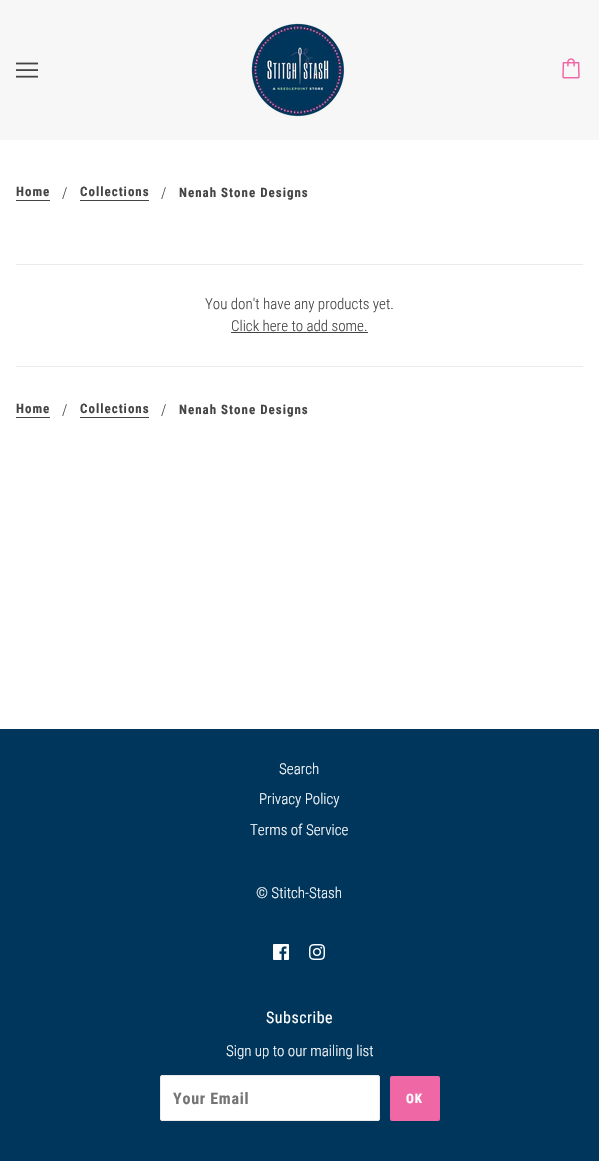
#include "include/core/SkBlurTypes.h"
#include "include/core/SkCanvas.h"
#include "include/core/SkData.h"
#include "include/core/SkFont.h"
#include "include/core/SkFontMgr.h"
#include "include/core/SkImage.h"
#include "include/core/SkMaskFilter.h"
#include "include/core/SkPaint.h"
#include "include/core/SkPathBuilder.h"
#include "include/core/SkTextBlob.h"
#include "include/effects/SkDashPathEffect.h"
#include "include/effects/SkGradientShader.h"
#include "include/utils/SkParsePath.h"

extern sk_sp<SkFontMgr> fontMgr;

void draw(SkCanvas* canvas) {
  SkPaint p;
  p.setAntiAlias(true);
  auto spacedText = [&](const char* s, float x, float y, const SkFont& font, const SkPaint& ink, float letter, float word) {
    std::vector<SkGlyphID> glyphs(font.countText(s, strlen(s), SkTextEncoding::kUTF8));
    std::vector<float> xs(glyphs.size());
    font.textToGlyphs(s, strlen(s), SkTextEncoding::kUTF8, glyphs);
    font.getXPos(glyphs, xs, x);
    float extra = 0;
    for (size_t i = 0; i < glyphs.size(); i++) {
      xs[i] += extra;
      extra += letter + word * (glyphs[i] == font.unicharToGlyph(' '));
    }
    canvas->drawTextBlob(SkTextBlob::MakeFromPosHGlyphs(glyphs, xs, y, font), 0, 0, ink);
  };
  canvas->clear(SK_ColorWHITE);
  p.setColor(SkColorSetRGB(247, 247, 247));
  canvas->drawRect(SkRect::MakeLTRB(0, 0, 599, 140), p);
  canvas->drawImageRect(SkImages::DeferredFromEncodedData(SkData::MakeFromFileName("images/1.png")), SkRect::MakeLTRB(16, 62, 38, 78), SkSamplingOptions());
  canvas->drawImageRect(SkImages::DeferredFromEncodedData(SkData::MakeFromFileName("images/2.png")), SkRect::MakeLTRB(251, 23, 345, 117), SkSamplingOptions());
  canvas->drawImageRect(SkImages::DeferredFromEncodedData(SkData::MakeFromFileName("images/3.png")), SkRect::MakeLTRB(562, 58, 580, 79), SkSamplingOptions());
  p.setColor(SkColorSetRGB(68, 68, 68));
  canvas->drawRect(SkRect::MakeLTRB(16, 200, 50, 201), p);
  canvas->drawRect(SkRect::MakeLTRB(80, 200, 149, 201), p);
  p.setColor(SkColorSetRGB(235, 235, 235));
  canvas->drawRect(SkRect::MakeLTRB(16, 264, 583, 265), p);
  p.setColor(SkColorSetRGB(68, 68, 68));
  canvas->drawRect(SkRect::MakeLTRB(231, 332, 368, 333), p);
  p.setColor(SkColorSetRGB(235, 235, 235));
  canvas->drawRect(SkRect::MakeLTRB(16, 366, 583, 367), p);
  p.setColor(SkColorSetRGB(68, 68, 68));
  canvas->drawRect(SkRect::MakeLTRB(16, 417, 50, 418), p);
  canvas->drawRect(SkRect::MakeLTRB(80, 417, 149, 418), p);
  p.setColor(SkColorSetRGB(0, 54, 92));
  canvas->drawRect(SkRect::MakeLTRB(0, 729, 599, 1161), p);
  canvas->drawImageRect(SkImages::DeferredFromEncodedData(SkData::MakeFromFileName("images/4.png")), SkRect::MakeLTRB(273, 944, 289, 960), SkSamplingOptions());
  canvas->drawImageRect(SkImages::DeferredFromEncodedData(SkData::MakeFromFileName("images/5.png")), SkRect::MakeLTRB(309, 944, 325, 960), SkSamplingOptions());
  p.setColor(SK_ColorWHITE);
  canvas->drawRoundRect(SkRect::MakeLTRB(160.5f, 1075.5f, 379.5f, 1120.5f), 1.5f, 1.5f, p);
  p.setStyle(SkPaint::kStroke_Style);
  p.setStrokeWidth(1);
  p.setColor(SkColorSetRGB(235, 235, 235));
  canvas->drawRoundRect(SkRect::MakeLTRB(160.5f, 1075.5f, 379.5f, 1120.5f), 1.5f, 1.5f, p);
  p.setStyle(SkPaint::kFill_Style);
  p.setColor(SkColorSetRGB(240, 103, 166));
  canvas->drawRoundRect(SkRect::MakeLTRB(390, 1076, 440, 1121), 2, 2, p);
  SkFont font1(fontMgr->matchFamilyStyle("Roboto Condensed", SkFontStyle::Bold()), 13);
  font1.setSubpixel(true);
  p.setColor(SkColorSetRGB(68, 68, 68));
  spacedText("Home", 16, 196, font1, p, 1, 0);
  SkFont font2(fontMgr->matchFamilyStyle("Roboto Condensed", SkFontStyle(300, SkFontStyle::kNormal_Width, SkFontStyle::kUpright_Slant)), 15);
  font2.setSubpixel(true);
  canvas->drawString("/", 62, 198, font2, p);
  spacedText("Collections", 80, 196, font1, p, 1, 0);
  canvas->drawString("/", 161, 198, font2, p);
  spacedText("Nenah Stone Designs", 179, 197, font1, p, 1, 0);
  canvas->drawString("You don't have any products yet.", 205, 309, font2, p);
  canvas->drawString("Click here to add some.", 231, 331, font2, p);
  spacedText("Home", 16, 413, font1, p, 1, 0);
  canvas->drawString("/", 62, 415, font2, p);
  spacedText("Collections", 80, 413, font1, p, 1, 0);
  canvas->drawString("/", 161, 415, font2, p);
  spacedText("Nenah Stone Designs", 179, 414, font1, p, 1, 0);
  p.setColor(SK_ColorWHITE);
  canvas->drawString("Search", 279, 774, font2, p);
  canvas->drawString("Privacy Policy", 259, 804, font2, p);
  canvas->drawString("Terms of Service", 250, 835, font2, p);
  canvas->drawString("© Stitch-Stash", 256, 898, font2, p);
  SkFont font3(fontMgr->matchFamilyStyle("Roboto Condensed", SkFontStyle::Normal()), 16);
  font3.setSubpixel(true);
  spacedText("Subscribe", 266, 1023, font3, p, 0.5f, 0);
  canvas->drawString("Sign up to our mailing list", 226, 1056, font2, p);
  SkFont font4(fontMgr->matchFamilyStyle("Roboto Condensed", SkFontStyle::Bold()), 16);
  font4.setSubpixel(true);
  p.setColor(SkColorSetRGB(117, 117, 117));
  spacedText("Your Email", 173, 1104, font4, p, 0.75f, 0);
  p.setColor(SK_ColorWHITE);
  spacedText("OK", 406, 1103, font1, p, 1, 0);
}
